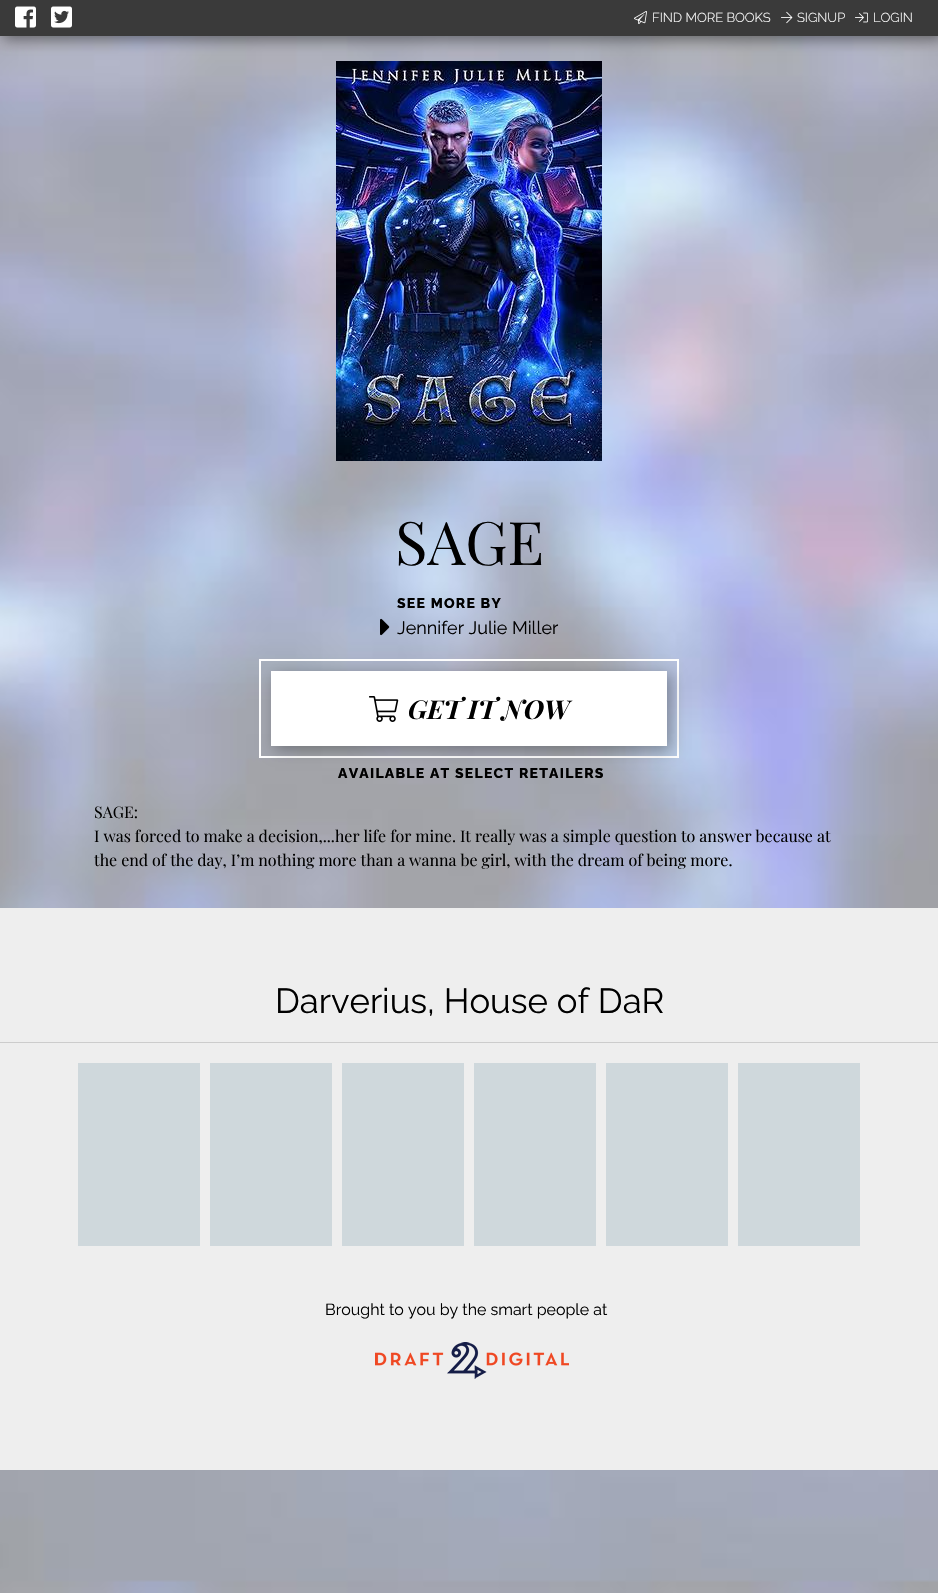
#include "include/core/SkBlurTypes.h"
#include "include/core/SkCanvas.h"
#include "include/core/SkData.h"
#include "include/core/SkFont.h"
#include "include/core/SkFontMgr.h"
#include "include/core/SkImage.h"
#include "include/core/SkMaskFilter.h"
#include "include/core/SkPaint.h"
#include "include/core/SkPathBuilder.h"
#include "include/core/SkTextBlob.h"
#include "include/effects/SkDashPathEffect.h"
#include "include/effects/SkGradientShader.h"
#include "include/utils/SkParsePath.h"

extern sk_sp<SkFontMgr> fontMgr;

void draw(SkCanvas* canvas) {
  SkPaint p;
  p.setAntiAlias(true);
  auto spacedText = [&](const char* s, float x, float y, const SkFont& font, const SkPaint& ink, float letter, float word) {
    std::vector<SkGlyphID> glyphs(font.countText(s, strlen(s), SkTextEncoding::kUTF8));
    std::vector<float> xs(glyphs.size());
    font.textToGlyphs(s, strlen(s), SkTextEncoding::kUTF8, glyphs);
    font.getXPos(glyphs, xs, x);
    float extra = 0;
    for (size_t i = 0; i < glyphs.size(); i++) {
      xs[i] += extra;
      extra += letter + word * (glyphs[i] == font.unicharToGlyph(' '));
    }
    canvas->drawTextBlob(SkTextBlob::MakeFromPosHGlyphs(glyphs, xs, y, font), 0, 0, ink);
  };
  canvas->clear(SK_ColorWHITE);
  canvas->drawImageRect(SkImages::DeferredFromEncodedData(SkData::MakeFromFileName("images/1.png")), SkRect::MakeLTRB(0, 36, 938, 1593), SkSamplingOptions());
  canvas->drawImageRect(SkImages::DeferredFromEncodedData(SkData::MakeFromFileName("images/7.png")), SkRect::MakeLTRB(336, 61, 602, 461), SkSamplingOptions());
  p.setColor(SkColorSetARGB(102, 0, 0, 0));
  p.setMaskFilter(SkMaskFilter::MakeBlur(kNormal_SkBlurStyle, 7));
  canvas->drawRect(SkRect::MakeLTRB(4, 4, 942, 40), p);
  p.setMaskFilter(nullptr);
  p.setColor(SkColorSetRGB(58, 58, 58));
  canvas->drawRect(SkRect::MakeLTRB(0, 0, 938, 36), p);
  canvas->drawImageRect(SkImages::DeferredFromEncodedData(SkData::MakeFromFileName("images/2.png")), SkRect::MakeLTRB(15, 6, 36, 28), SkSamplingOptions());
  canvas->drawImageRect(SkImages::DeferredFromEncodedData(SkData::MakeFromFileName("images/3.png")), SkRect::MakeLTRB(51, 6, 72, 28), SkSamplingOptions());
  canvas->drawImageRect(SkImages::DeferredFromEncodedData(SkData::MakeFromFileName("images/4.png")), SkRect::MakeLTRB(634, 11, 647, 24), SkSamplingOptions());
  canvas->drawImageRect(SkImages::DeferredFromEncodedData(SkData::MakeFromFileName("images/5.png")), SkRect::MakeLTRB(781, 11, 793, 24), SkSamplingOptions());
  canvas->drawImageRect(SkImages::DeferredFromEncodedData(SkData::MakeFromFileName("images/6.png")), SkRect::MakeLTRB(855, 12, 868, 23), SkSamplingOptions());
  canvas->drawImageRect(SkImages::DeferredFromEncodedData(SkData::MakeFromFileName("images/8.png")), SkRect::MakeLTRB(380, 618, 390, 636), SkSamplingOptions());
  p.setStyle(SkPaint::kStroke_Style);
  p.setStrokeWidth(2);
  p.setColor(SK_ColorWHITE);
  canvas->drawRect(SkRect::MakeLTRB(260, 660, 678, 757), p);
  p.setStyle(SkPaint::kFill_Style);
  p.setColor(SkColorSetARGB(77, 0, 0, 0));
  p.setMaskFilter(SkMaskFilter::MakeBlur(kNormal_SkBlurStyle, 7));
  canvas->drawRect(SkRect::MakeLTRB(275, 675, 671, 750), p);
  p.setMaskFilter(nullptr);
  p.setColor(SK_ColorWHITE);
  canvas->drawRect(SkRect::MakeLTRB(271, 671, 667, 746), p);
  canvas->drawImageRect(SkImages::DeferredFromEncodedData(SkData::MakeFromFileName("images/9.png")), SkRect::MakeLTRB(369, 696, 399, 722), SkSamplingOptions());
  p.setColor(SkColorSetRGB(238, 238, 238));
  canvas->drawRect(SkRect::MakeLTRB(0, 908, 938, 949), p);
  canvas->drawRect(SkRect::MakeLTRB(0, 949, 938, 1470), p);
  p.setColor(SkColorSetRGB(204, 204, 204));
  canvas->drawRect(SkRect::MakeLTRB(0, 1042, 938, 1043), p);
  p.setColor(SkColorSetRGB(207, 216, 220));
  canvas->drawRect(SkRect::MakeLTRB(78, 1063, 200, 1246), p);
  canvas->drawRect(SkRect::MakeLTRB(210, 1063, 332, 1246), p);
  canvas->drawRect(SkRect::MakeLTRB(342, 1063, 464, 1246), p);
  canvas->drawRect(SkRect::MakeLTRB(474, 1063, 596, 1246), p);
  canvas->drawRect(SkRect::MakeLTRB(606, 1063, 728, 1246), p);
  canvas->drawRect(SkRect::MakeLTRB(738, 1063, 860, 1246), p);
  canvas->drawImageRect(SkImages::DeferredFromEncodedData(SkData::MakeFromFileName("images/10.png")), SkRect::MakeLTRB(375, 1342, 569, 1379), SkSamplingOptions());
  SkFont font1(fontMgr->matchFamilyStyle("Raleway", SkFontStyle(300, SkFontStyle::kNormal_Width, SkFontStyle::kUpright_Slant)), 13);
  font1.setSubpixel(true);
  p.setColor(SK_ColorWHITE);
  canvas->drawString("FIND MORE BOOKS", 652, 22, font1, p);
  canvas->drawString("SIGNUP", 797, 22, font1, p);
  canvas->drawString("LOGIN", 873, 22, font1, p);
  SkFont font2(fontMgr->matchFamilyStyle("Playfair Display", SkFontStyle::Normal()), 60);
  font2.setSubpixel(true);
  p.setColor(SK_ColorBLACK);
  canvas->drawString("SAGE", 395, 565, font2, p);
  SkFont font3(fontMgr->matchFamilyStyle("Raleway", SkFontStyle(800, SkFontStyle::kNormal_Width, SkFontStyle::kUpright_Slant)), 14);
  font3.setSubpixel(true);
  spacedText("SEE MORE BY", 397, 608, font3, p, 1.25f, 0);
  SkFont font4(fontMgr->matchFamilyStyle("Raleway", SkFontStyle::Normal()), 18);
  font4.setSubpixel(true);
  canvas->drawString("Jennifer Julie Miller", 397, 634, font4, p);
  SkFont font5(fontMgr->matchFamilyStyle("Playfair Display", SkFontStyle::BoldItalic()), 26);
  font5.setSubpixel(true);
  canvas->drawString("GET IT NOW", 408, 719, font5, p);
  spacedText("AVAILABLE AT SELECT RETAILERS", 338, 778, font3, p, 1.25f, 0);
  SkFont font6(fontMgr->matchFamilyStyle("Playfair Display", SkFontStyle::Normal()), 16);
  font6.setSubpixel(true);
  canvas->drawString("SAGE:", 94, 818, font6, p);
  canvas->drawString("I was forced to make a decision,...her life for mine. It really was a simple question to answer because at", 94, 842, font6, p);
  canvas->drawString("the end of the day, I’m nothing more than a wanna be girl, with the dream of being more.", 94, 866, font6, p);
  SkFont font7(fontMgr->matchFamilyStyle("Raleway", SkFontStyle::Normal()), 34.75f);
  font7.setSubpixel(true);
  canvas->drawString("Darverius, House of DaR", 275, 1013, font7, p);
  SkFont font8(fontMgr->matchFamilyStyle("Raleway", SkFontStyle::Normal()), 16);
  font8.setSubpixel(true);
  canvas->drawString("Brought to you by the smart people at", 325, 1315, font8, p);
}
